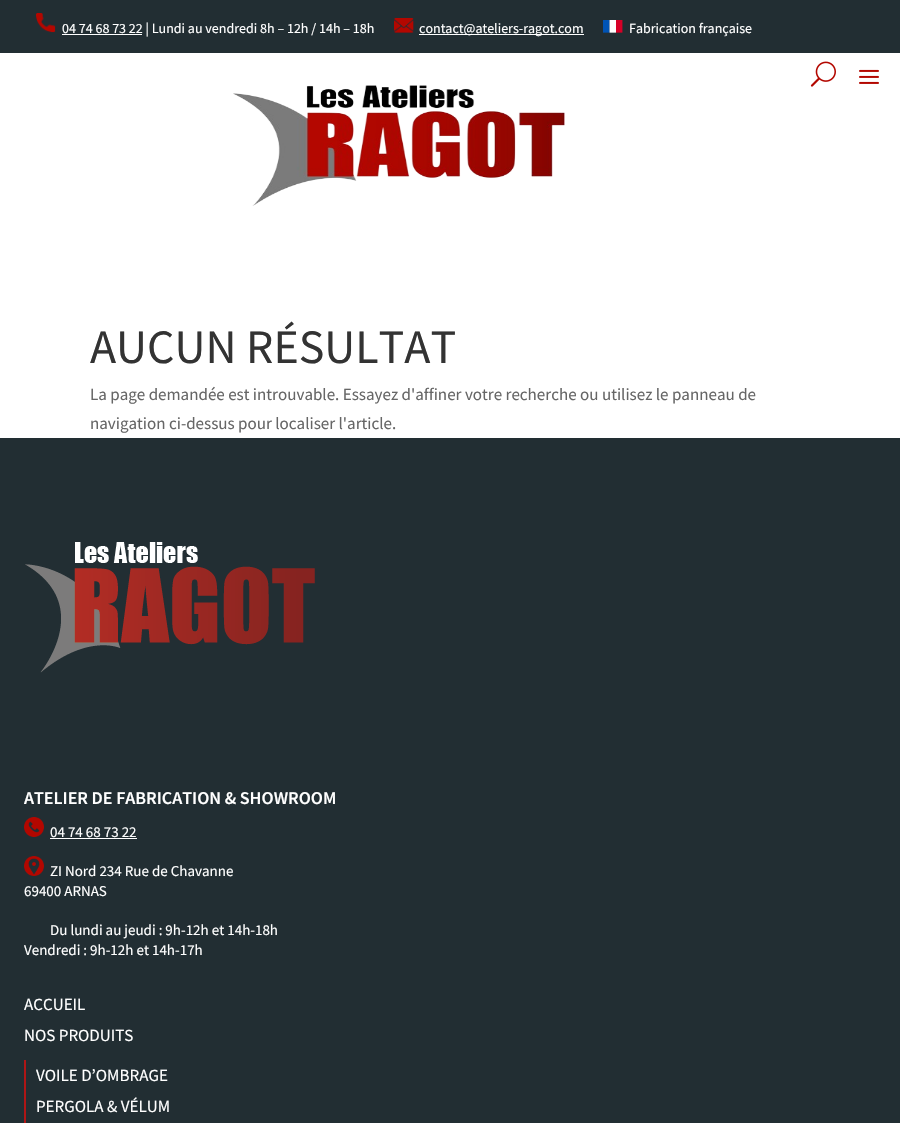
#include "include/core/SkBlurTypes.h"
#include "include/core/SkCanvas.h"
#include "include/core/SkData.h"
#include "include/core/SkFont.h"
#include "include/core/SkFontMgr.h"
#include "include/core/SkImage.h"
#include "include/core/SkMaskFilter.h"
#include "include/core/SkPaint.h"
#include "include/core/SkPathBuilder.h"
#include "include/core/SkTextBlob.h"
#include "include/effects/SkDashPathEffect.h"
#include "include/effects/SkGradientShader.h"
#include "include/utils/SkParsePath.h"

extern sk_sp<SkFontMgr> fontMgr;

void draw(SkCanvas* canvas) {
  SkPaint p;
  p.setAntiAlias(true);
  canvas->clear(SkColorSetRGB(34, 46, 51));
  canvas->drawImageRect(SkImages::DeferredFromEncodedData(SkData::MakeFromFileName("images/1.png")), SkRect::MakeLTRB(36, 13, 56, 33), SkSamplingOptions());
  p.setColor(SK_ColorWHITE);
  canvas->drawRect(SkRect::MakeLTRB(62, 34, 142, 35), p);
  canvas->drawImageRect(SkImages::DeferredFromEncodedData(SkData::MakeFromFileName("images/2.png")), SkRect::MakeLTRB(394, 18, 414, 33), SkSamplingOptions());
  canvas->drawRect(SkRect::MakeLTRB(419, 34, 584, 35), p);
  canvas->drawImageRect(SkImages::DeferredFromEncodedData(SkData::MakeFromFileName("images/3.png")), SkRect::MakeLTRB(603, 20, 623, 33), SkSamplingOptions());
  canvas->drawRect(SkRect::MakeLTRB(0, 53, 900, 438), p);
  canvas->drawImageRect(SkImages::DeferredFromEncodedData(SkData::MakeFromFileName("images/4.png")), SkRect::MakeLTRB(810, 61, 836, 87), SkSamplingOptions());
  canvas->drawImageRect(SkImages::DeferredFromEncodedData(SkData::MakeFromFileName("images/5.png")), SkRect::MakeLTRB(859, 69, 879, 84), SkSamplingOptions());
  canvas->drawImageRect(SkImages::DeferredFromEncodedData(SkData::MakeFromFileName("images/6.png")), SkRect::MakeLTRB(233, 85, 565, 206), SkSamplingOptions());
  canvas->drawImageRect(SkImages::DeferredFromEncodedData(SkData::MakeFromFileName("images/7.png")), SkRect::MakeLTRB(25, 542, 315, 673), SkSamplingOptions());
  canvas->drawImageRect(SkImages::DeferredFromEncodedData(SkData::MakeFromFileName("images/8.png")), SkRect::MakeLTRB(24, 817, 44, 837), SkSamplingOptions());
  canvas->drawRect(SkRect::MakeLTRB(50, 838, 137, 839), p);
  canvas->drawImageRect(SkImages::DeferredFromEncodedData(SkData::MakeFromFileName("images/9.png")), SkRect::MakeLTRB(24, 856, 44, 876), SkSamplingOptions());
  p.setColor(SkColorSetRGB(175, 22, 22));
  canvas->drawRect(SkRect::MakeLTRB(24, 1060, 26, 1123), p);
  SkFont font1(fontMgr->matchFamilyStyle("Source Sans Pro", SkFontStyle::Normal()), 14);
  font1.setSubpixel(true);
  p.setColor(SK_ColorWHITE);
  canvas->drawString("04 74 68 73 22 | Lundi au vendredi 8h – 12h / 14h – 18h", 62, 33, font1, p);
  canvas->drawString("contact@ateliers-ragot.com", 419, 33, font1, p);
  canvas->drawString("Fabrication française", 629, 33, font1, p);
  SkFont font2(fontMgr->matchFamilyStyle("Source Sans Pro", SkFontStyle::Normal()), 48);
  font2.setSubpixel(true);
  p.setColor(SkColorSetRGB(51, 51, 51));
  canvas->drawString("AUCUN RÉSULTAT", 90, 363, font2, p);
  SkFont font3(fontMgr->matchFamilyStyle("Source Sans Pro", SkFontStyle::Normal()), 17);
  font3.setSubpixel(true);
  p.setColor(SkColorSetRGB(102, 102, 102));
  canvas->drawString("La page demandée est introuvable. Essayez d'affiner votre recherche ou utilisez le panneau de", 90, 400, font3, p);
  canvas->drawString("navigation ci-dessus pour localiser l'article.", 90, 429, font3, p);
  SkFont font4(fontMgr->matchFamilyStyle("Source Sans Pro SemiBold", SkFontStyle(600, SkFontStyle::kNormal_Width, SkFontStyle::kUpright_Slant)), 18);
  font4.setSubpixel(true);
  p.setColor(SK_ColorWHITE);
  canvas->drawString("ATELIER DE FABRICATION & SHOWROOM", 24, 804, font4, p);
  SkFont font5(fontMgr->matchFamilyStyle("Source Sans Pro", SkFontStyle::Normal()), 15);
  font5.setSubpixel(true);
  canvas->drawString("04 74 68 73 22", 50, 837, font5, p);
  canvas->drawString("ZI Nord 234 Rue de Chavanne", 50, 876, font5, p);
  canvas->drawString("69400 ARNAS", 24, 896, font5, p);
  canvas->drawString("Du lundi au jeudi : 9h-12h et 14h-18h", 50, 935, font5, p);
  canvas->drawString("Vendredi : 9h-12h et 14h-17h", 24, 955, font5, p);
  canvas->drawString("ACCUEIL", 24, 1010, font3, p);
  canvas->drawString("NOS PRODUITS", 24, 1041, font3, p);
  canvas->drawString("VOILE D’OMBRAGE", 36, 1081, font3, p);
  canvas->drawString("PERGOLA & VÉLUM", 36, 1112, font3, p);
}
